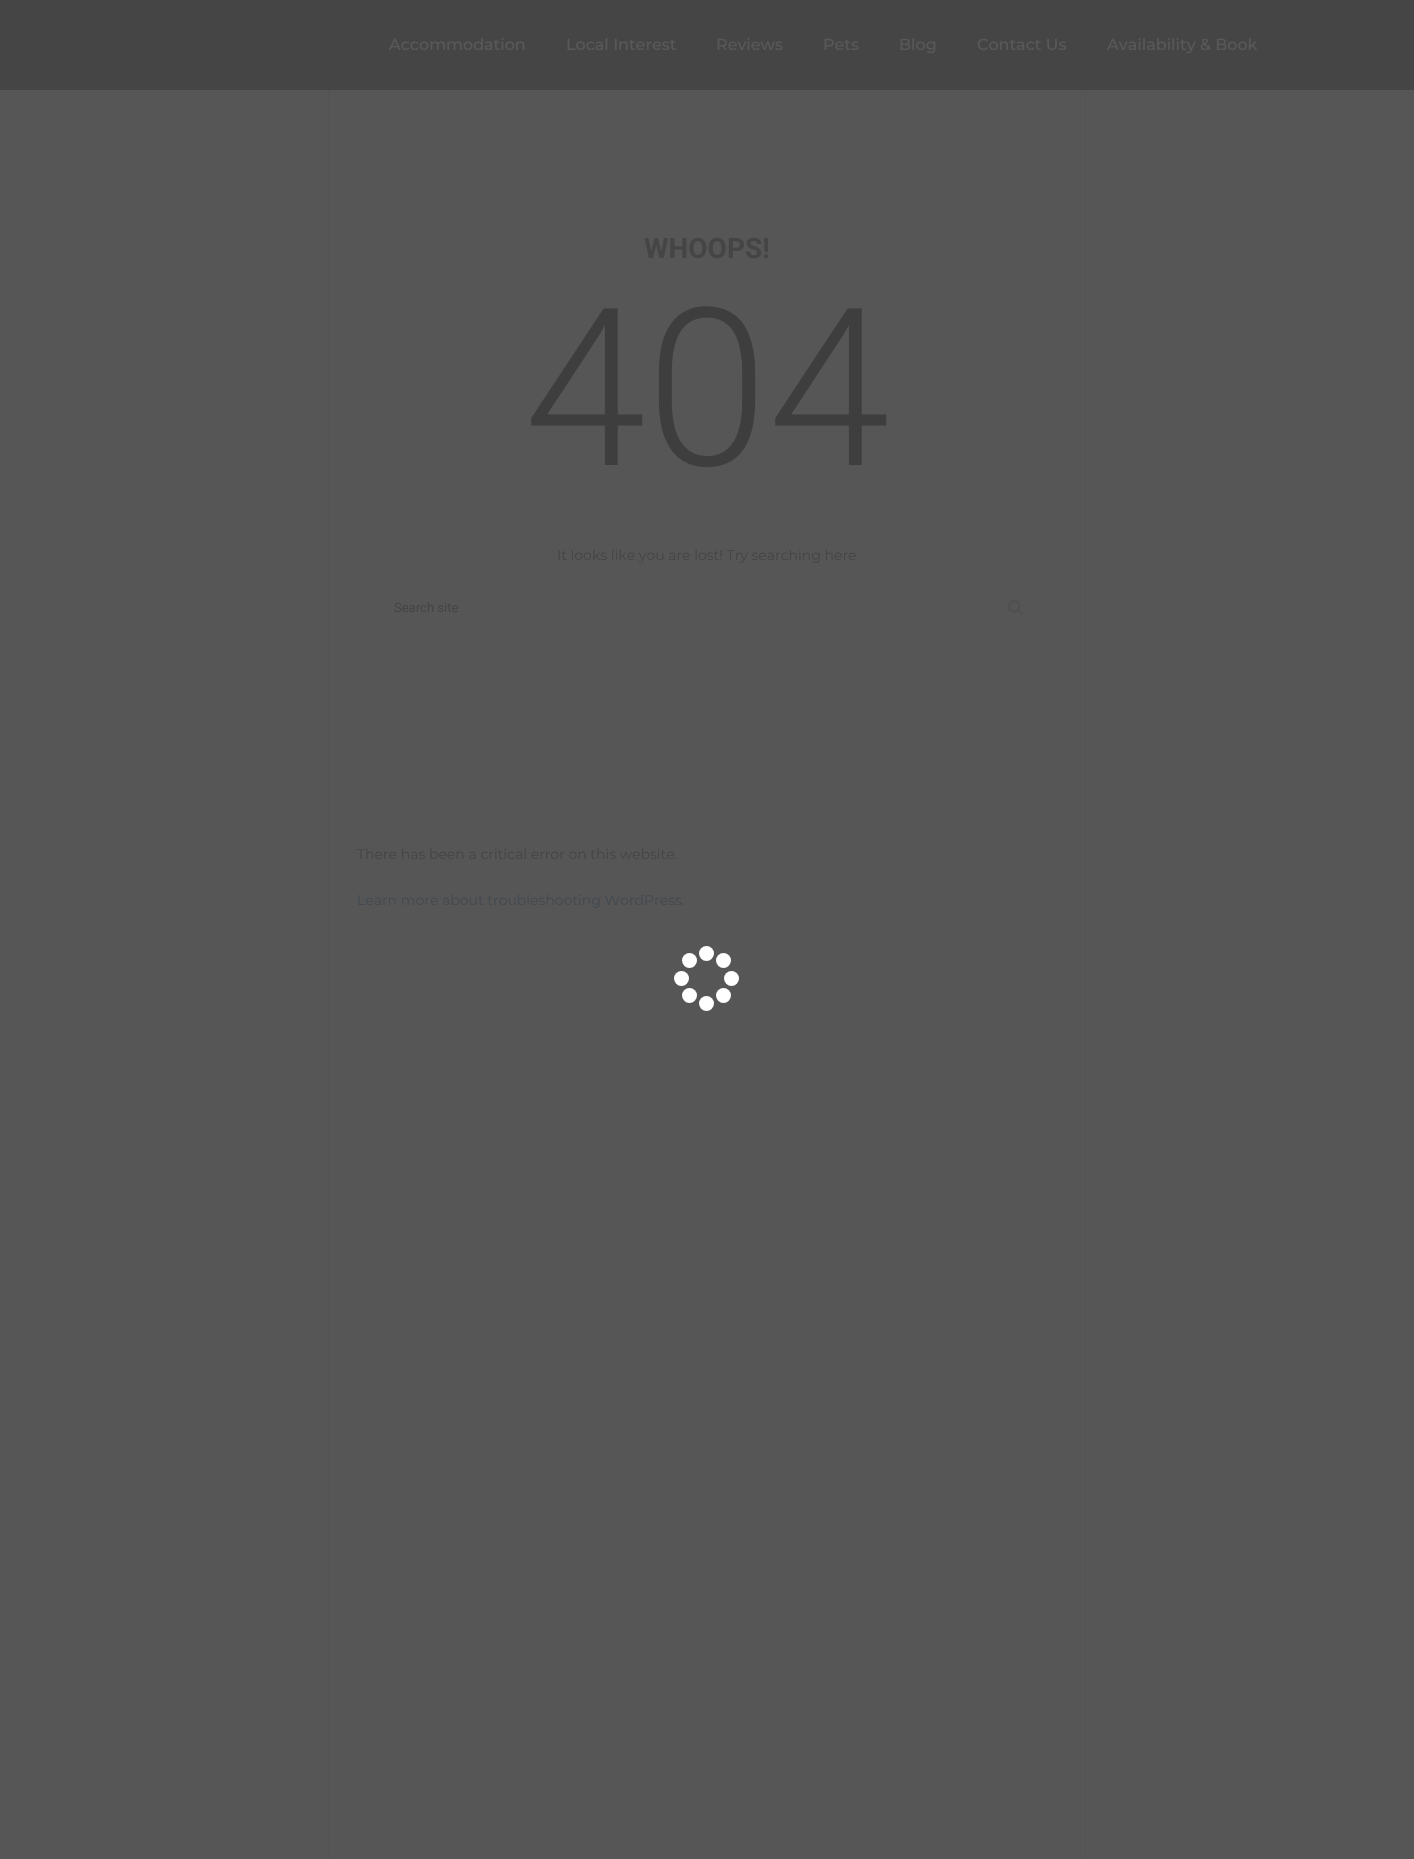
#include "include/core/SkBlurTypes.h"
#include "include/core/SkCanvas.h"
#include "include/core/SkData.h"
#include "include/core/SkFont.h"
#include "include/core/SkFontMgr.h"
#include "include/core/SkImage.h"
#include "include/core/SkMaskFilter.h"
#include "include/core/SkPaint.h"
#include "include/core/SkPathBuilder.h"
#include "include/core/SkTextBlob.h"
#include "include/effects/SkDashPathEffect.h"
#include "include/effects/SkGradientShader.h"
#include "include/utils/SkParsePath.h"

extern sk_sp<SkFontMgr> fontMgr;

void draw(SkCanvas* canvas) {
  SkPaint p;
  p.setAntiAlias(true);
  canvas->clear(SkColorSetRGB(86, 86, 86));
  p.setStyle(SkPaint::kStroke_Style);
  p.setStrokeWidth(1);
  p.setColor(SkColorSetRGB(83, 83, 83));
  canvas->drawRect(SkRect::MakeLTRB(328.5f, 50.5f, 1085.5f, 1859.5f), p);
  p.setStyle(SkPaint::kFill_Style);
  p.setColor(SkColorSetRGB(69, 69, 69));
  canvas->drawRect(SkRect::MakeLTRB(0, 0, 1414, 90), p);
  canvas->drawImageRect(SkImages::DeferredFromEncodedData(SkData::MakeFromFileName("images/1.png")), SkRect::MakeLTRB(1008, 600, 1023, 615), SkSamplingOptions());
  p.setColor(SK_ColorWHITE);
  canvas->drawCircle(689.5f, 960.5f, 7.5f, p);
  canvas->drawCircle(706.5f, 953.5f, 7.5f, p);
  canvas->drawCircle(723.5f, 960.5f, 7.5f, p);
  canvas->drawCircle(681.5f, 978.5f, 7.5f, p);
  canvas->drawCircle(731.5f, 978.5f, 7.5f, p);
  canvas->drawCircle(689.5f, 995.5f, 7.5f, p);
  canvas->drawCircle(706.5f, 1003.5f, 7.5f, p);
  canvas->drawCircle(723.5f, 995.5f, 7.5f, p);
  SkFont font1(fontMgr->matchFamilyStyle("Montserrat", SkFontStyle(500, SkFontStyle::kNormal_Width, SkFontStyle::kUpright_Slant)), 16);
  font1.setSubpixel(true);
  p.setColor(SkColorSetRGB(88, 88, 88));
  canvas->drawString("Accommodation", 389, 50, font1, p);
  canvas->drawString("Local Interest", 566, 50, font1, p);
  canvas->drawString("Reviews", 716, 50, font1, p);
  canvas->drawString("Pets", 823, 50, font1, p);
  canvas->drawString("Blog", 899, 50, font1, p);
  canvas->drawString("Contact Us", 977, 50, font1, p);
  canvas->drawString("Availability & Book", 1107, 50, font1, p);
  SkFont font2(fontMgr->matchFamilyStyle("Roboto", SkFontStyle::Bold()), 28);
  font2.setSubpixel(true);
  p.setColor(SkColorSetRGB(69, 69, 69));
  canvas->drawString("WHOOPS!", 644, 258, font2, p);
  SkFont font3(fontMgr->matchFamilyStyle("Roboto", SkFontStyle(300, SkFontStyle::kNormal_Width, SkFontStyle::kUpright_Slant)), 220);
  font3.setSubpixel(true);
  p.setColor(SkColorSetRGB(62, 62, 62));
  canvas->drawString("404", 524, 465, font3, p);
  SkFont font4(fontMgr->matchFamilyStyle("Montserrat", SkFontStyle::Normal()), 14);
  font4.setSubpixel(true);
  p.setColor(SkColorSetRGB(69, 69, 69));
  canvas->drawString("It looks like you are lost! Try searching here", 557, 560, font4, p);
  SkFont font5(fontMgr->matchFamilyStyle("Roboto", SkFontStyle::Normal()), 13);
  font5.setSubpixel(true);
  canvas->drawString("Search site", 394, 612, font5, p);
  canvas->drawString("There has been a critical error on this website.", 357, 859, font4, p);
  p.setColor(SkColorSetRGB(66, 73, 80));
  canvas->drawString("Learn more about troubleshooting WordPress.", 357, 905, font4, p);
}
